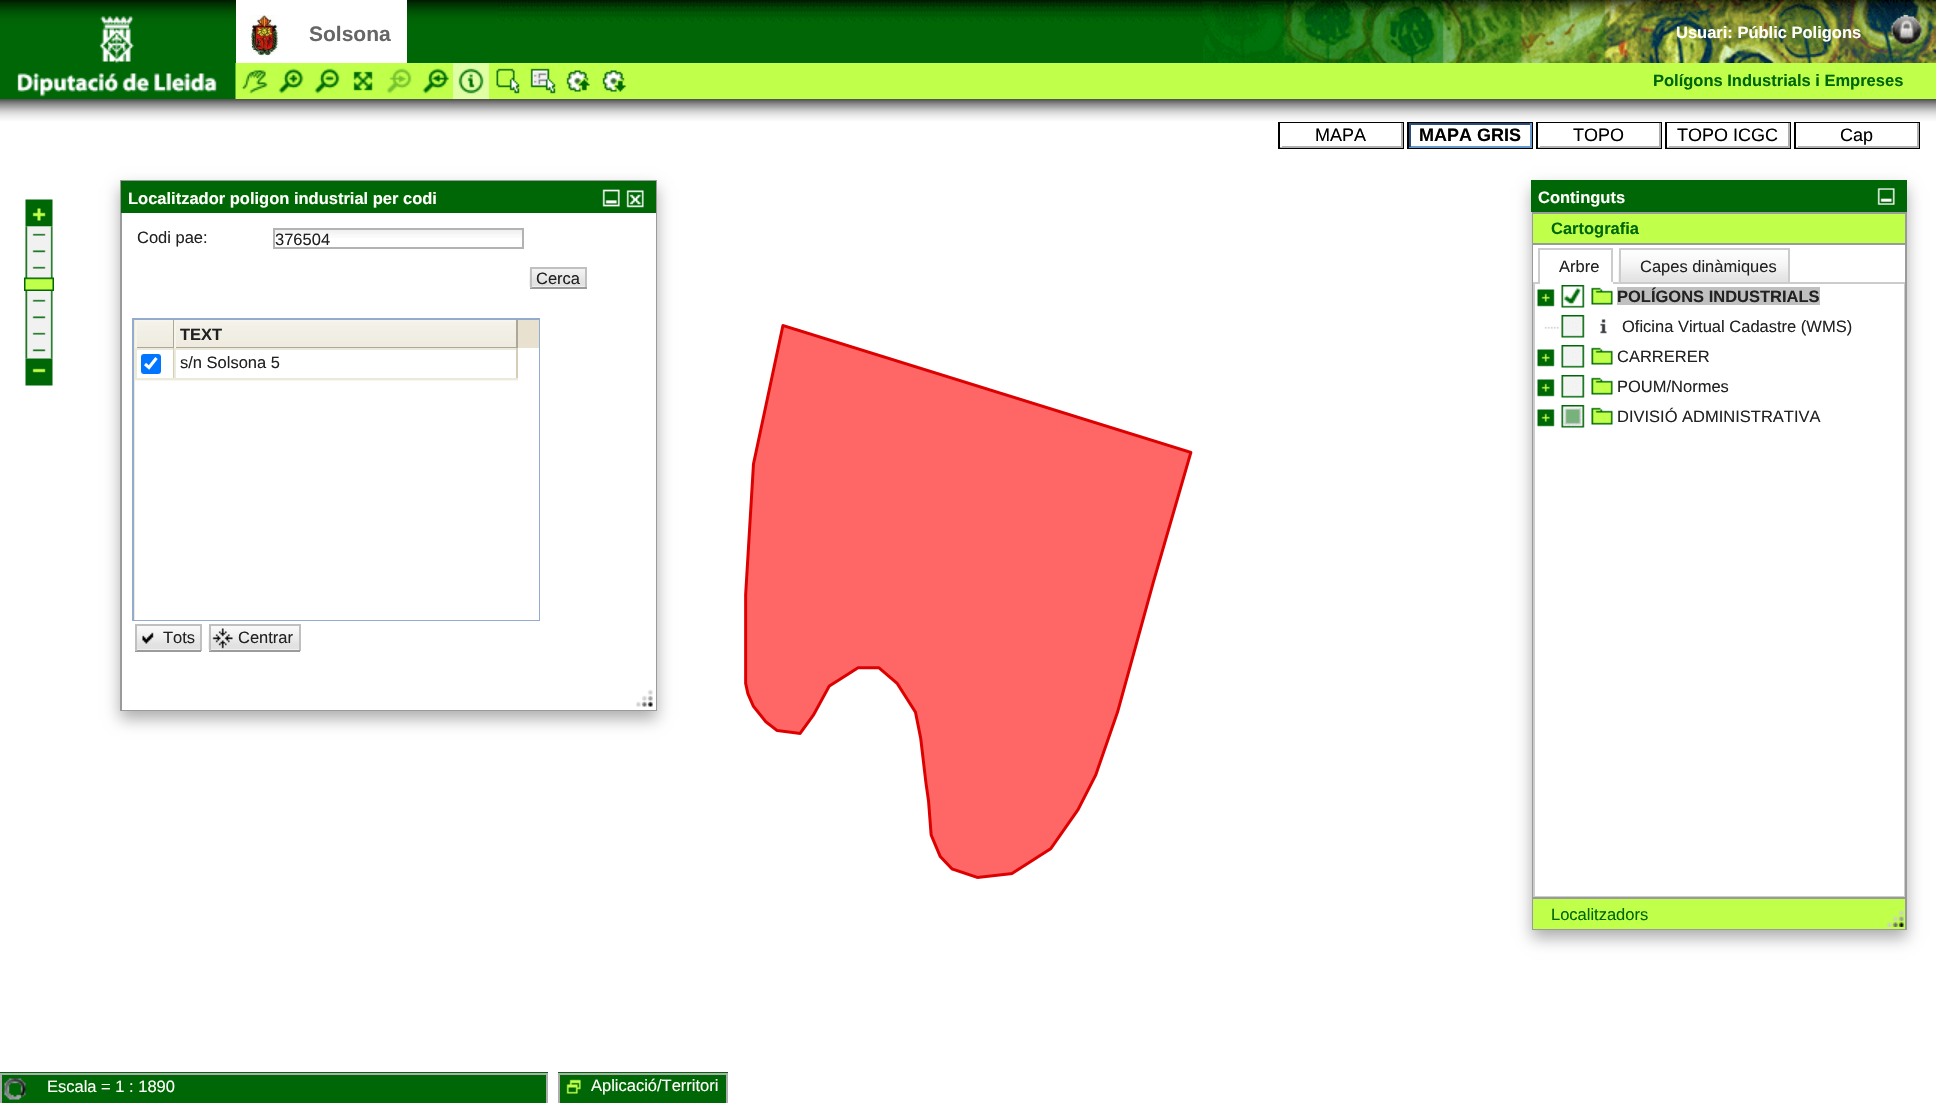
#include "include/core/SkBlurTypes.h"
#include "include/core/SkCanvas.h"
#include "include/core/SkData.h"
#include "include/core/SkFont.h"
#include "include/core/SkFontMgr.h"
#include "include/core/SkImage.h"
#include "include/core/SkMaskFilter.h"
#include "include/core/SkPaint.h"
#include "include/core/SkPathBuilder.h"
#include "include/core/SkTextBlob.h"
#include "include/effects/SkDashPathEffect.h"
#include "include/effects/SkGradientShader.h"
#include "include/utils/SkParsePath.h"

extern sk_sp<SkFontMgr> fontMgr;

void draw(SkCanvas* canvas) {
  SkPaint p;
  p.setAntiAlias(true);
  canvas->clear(SK_ColorWHITE);
  canvas->drawImageRect(SkImages::DeferredFromEncodedData(SkData::MakeFromFileName("images/2.png")), SkRect::MakeLTRB(0, 0, 497, 63), SkSamplingOptions());
  p.setColor(SkColorSetRGB(192, 255, 74));
  canvas->drawRect(SkRect::MakeLTRB(235, 63, 1936, 99), p);
  canvas->drawImageRect(SkImages::DeferredFromEncodedData(SkData::MakeFromFileName("images/1.png")), SkRect::MakeLTRB(0, 16, 236, 99), SkSamplingOptions());
  canvas->drawImageRect(SkImages::DeferredFromEncodedData(SkData::MakeFromFileName("images/3.png")), SkRect::MakeLTRB(497, 0, 1936, 63), SkSamplingOptions());
  p.setColor(SK_ColorWHITE);
  canvas->drawRect(SkRect::MakeLTRB(236, 0, 407, 63), p);
  canvas->drawImageRect(SkImages::DeferredFromEncodedData(SkData::MakeFromFileName("images/4.png")), SkRect::MakeLTRB(250, 15, 279, 56), SkSamplingOptions());
  canvas->drawImageRect(SkImages::DeferredFromEncodedData(SkData::MakeFromFileName("images/5.png")), SkRect::MakeLTRB(1891, 15, 1922, 45), SkSamplingOptions());
  canvas->drawImageRect(SkImages::DeferredFromEncodedData(SkData::MakeFromFileName("images/6.png")), SkRect::MakeLTRB(241, 70, 268, 94), SkSamplingOptions());
  canvas->drawImageRect(SkImages::DeferredFromEncodedData(SkData::MakeFromFileName("images/7.png")), SkRect::MakeLTRB(278, 68, 304, 94), SkSamplingOptions());
  canvas->drawImageRect(SkImages::DeferredFromEncodedData(SkData::MakeFromFileName("images/8.png")), SkRect::MakeLTRB(314, 68, 340, 94), SkSamplingOptions());
  canvas->drawImageRect(SkImages::DeferredFromEncodedData(SkData::MakeFromFileName("images/9.png")), SkRect::MakeLTRB(353, 71, 373, 91), SkSamplingOptions());
  canvas->drawImageRect(SkImages::DeferredFromEncodedData(SkData::MakeFromFileName("images/10.png")), SkRect::MakeLTRB(386, 68, 412, 94), SkSamplingOptions());
  canvas->drawImageRect(SkImages::DeferredFromEncodedData(SkData::MakeFromFileName("images/11.png")), SkRect::MakeLTRB(422, 68, 449, 94), SkSamplingOptions());
  canvas->drawImageRect(SkImages::DeferredFromEncodedData(SkData::MakeFromFileName("images/12.png")), SkRect::MakeLTRB(453, 63, 489, 99), SkSamplingOptions());
  canvas->drawImageRect(SkImages::DeferredFromEncodedData(SkData::MakeFromFileName("images/13.png")), SkRect::MakeLTRB(496, 68, 520, 94), SkSamplingOptions());
  canvas->drawImageRect(SkImages::DeferredFromEncodedData(SkData::MakeFromFileName("images/14.png")), SkRect::MakeLTRB(530, 68, 556, 94), SkSamplingOptions());
  canvas->drawImageRect(SkImages::DeferredFromEncodedData(SkData::MakeFromFileName("images/15.png")), SkRect::MakeLTRB(566, 70, 590, 92), SkSamplingOptions());
  canvas->drawImageRect(SkImages::DeferredFromEncodedData(SkData::MakeFromFileName("images/16.png")), SkRect::MakeLTRB(602, 70, 626, 92), SkSamplingOptions());
  canvas->drawImageRect(SkImages::DeferredFromEncodedData(SkData::MakeFromFileName("images/17.png")), SkRect::MakeLTRB(0, 99, 1936, 121), SkSamplingOptions());
  p.setStyle(SkPaint::kStroke_Style);
  p.setStrokeWidth(2);
  p.setColor(SK_ColorBLACK);
  canvas->drawRect(SkRect::MakeLTRB(1279, 123, 1403, 148), p);
  p.setStyle(SkPaint::kFill_Style);
  p.setColor(SK_ColorWHITE);
  canvas->drawRect(SkRect::MakeLTRB(1282, 123, 1401, 124), p);
  p.setColor(SkColorSetRGB(176, 176, 176));
  canvas->drawRect(SkRect::MakeLTRB(1401, 123, 1403, 147), p);
  canvas->drawRect(SkRect::MakeLTRB(1280, 146, 1403, 148), p);
  p.setColor(SK_ColorWHITE);
  canvas->drawRect(SkRect::MakeLTRB(1280, 123, 1282, 147), p);
  p.setStyle(SkPaint::kStroke_Style);
  p.setColor(SK_ColorBLACK);
  canvas->drawRect(SkRect::MakeLTRB(1408, 123, 1532, 148), p);
  p.setStyle(SkPaint::kFill_Style);
  p.setColor(SkColorSetRGB(45, 77, 121));
  canvas->drawRect(SkRect::MakeLTRB(1409, 123, 1532, 125), p);
  p.setColor(SkColorSetRGB(102, 153, 204));
  canvas->drawRect(SkRect::MakeLTRB(1530, 123, 1532, 147), p);
  canvas->drawRect(SkRect::MakeLTRB(1409, 146, 1532, 148), p);
  p.setColor(SkColorSetRGB(45, 77, 121));
  canvas->drawRect(SkRect::MakeLTRB(1409, 123, 1411, 147), p);
  p.setStyle(SkPaint::kStroke_Style);
  p.setColor(SK_ColorBLACK);
  canvas->drawRect(SkRect::MakeLTRB(1537, 123, 1661, 148), p);
  p.setStyle(SkPaint::kFill_Style);
  p.setColor(SK_ColorWHITE);
  canvas->drawRect(SkRect::MakeLTRB(1540, 123, 1659, 124), p);
  p.setColor(SkColorSetRGB(176, 176, 176));
  canvas->drawRect(SkRect::MakeLTRB(1659, 123, 1661, 147), p);
  canvas->drawRect(SkRect::MakeLTRB(1538, 146, 1661, 148), p);
  p.setColor(SK_ColorWHITE);
  canvas->drawRect(SkRect::MakeLTRB(1538, 123, 1540, 147), p);
  p.setStyle(SkPaint::kStroke_Style);
  p.setColor(SK_ColorBLACK);
  canvas->drawRect(SkRect::MakeLTRB(1666, 123, 1790, 148), p);
  p.setStyle(SkPaint::kFill_Style);
  p.setColor(SK_ColorWHITE);
  canvas->drawRect(SkRect::MakeLTRB(1669, 123, 1788, 124), p);
  p.setColor(SkColorSetRGB(176, 176, 176));
  canvas->drawRect(SkRect::MakeLTRB(1788, 123, 1790, 147), p);
  canvas->drawRect(SkRect::MakeLTRB(1667, 146, 1790, 148), p);
  p.setColor(SK_ColorWHITE);
  canvas->drawRect(SkRect::MakeLTRB(1667, 123, 1669, 147), p);
  p.setStyle(SkPaint::kStroke_Style);
  p.setColor(SK_ColorBLACK);
  canvas->drawRect(SkRect::MakeLTRB(1795, 123, 1919, 148), p);
  p.setStyle(SkPaint::kFill_Style);
  p.setColor(SK_ColorWHITE);
  canvas->drawRect(SkRect::MakeLTRB(1798, 123, 1917, 124), p);
  p.setColor(SkColorSetRGB(176, 176, 176));
  canvas->drawRect(SkRect::MakeLTRB(1917, 123, 1919, 147), p);
  canvas->drawRect(SkRect::MakeLTRB(1796, 146, 1919, 148), p);
  p.setColor(SK_ColorWHITE);
  canvas->drawRect(SkRect::MakeLTRB(1796, 123, 1798, 147), p);
  canvas->drawImageRect(SkImages::DeferredFromEncodedData(SkData::MakeFromFileName("images/18.png")), SkRect::MakeLTRB(25, 199, 53, 227), SkSamplingOptions());
  canvas->drawImageRect(SkImages::DeferredFromEncodedData(SkData::MakeFromFileName("images/19.png")), SkRect::MakeLTRB(25, 226, 53, 359), SkSamplingOptions());
  canvas->drawImageRect(SkImages::DeferredFromEncodedData(SkData::MakeFromFileName("images/20.png")), SkRect::MakeLTRB(24, 277, 54, 291), SkSamplingOptions());
  canvas->drawImageRect(SkImages::DeferredFromEncodedData(SkData::MakeFromFileName("images/21.png")), SkRect::MakeLTRB(25, 358, 53, 386), SkSamplingOptions());
  canvas->drawImageRect(SkImages::DeferredFromEncodedData(SkData::MakeFromFileName("images/22.png")), SkRect::MakeLTRB(744, 324, 1193, 879), SkSamplingOptions());
  p.setColor(SkColorSetRGB(0, 103, 6));
  canvas->drawRect(SkRect::MakeLTRB(0, 1072, 548, 1103), p);
  canvas->drawImageRect(SkImages::DeferredFromEncodedData(SkData::MakeFromFileName("images/23.png")), SkRect::MakeLTRB(4, 1078, 26, 1100), SkSamplingOptions());
  p.setColor(SkColorSetRGB(173, 173, 173));
  canvas->drawRect(SkRect::MakeLTRB(0, 1073, 548, 1075), p);
  canvas->drawRect(SkRect::MakeLTRB(0, 1073, 2, 1103), p);
  canvas->drawRect(SkRect::MakeLTRB(546, 1073, 548, 1103), p);
  p.setColor(SkColorSetRGB(0, 103, 6));
  canvas->drawRect(SkRect::MakeLTRB(558, 1072, 728, 1103), p);
  p.setStyle(SkPaint::kStroke_Style);
  p.setColor(SkColorSetRGB(173, 173, 173));
  canvas->drawRect(SkRect::MakeLTRB(559, 1074, 727, 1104), p);
  canvas->drawImageRect(SkImages::DeferredFromEncodedData(SkData::MakeFromFileName("images/24.png")), SkRect::MakeLTRB(566, 1079, 581, 1094), SkSamplingOptions());
  p.setStyle(SkPaint::kFill_Style);
  p.setMaskFilter(SkMaskFilter::MakeBlur(kNormal_SkBlurStyle, 7.5f));
  canvas->drawRect(SkRect::MakeLTRB(120, 188, 657, 719), p);
  p.setMaskFilter(nullptr);
  p.setStyle(SkPaint::kStroke_Style);
  p.setColor(SkColorSetRGB(154, 154, 154));
  canvas->drawRect(SkRect::MakeLTRB(121, 181, 656, 710), p);
  p.setStyle(SkPaint::kFill_Style);
  p.setColor(SkColorSetRGB(0, 103, 6));
  canvas->drawRect(SkRect::MakeLTRB(121, 181, 656, 213), p);
  canvas->drawImageRect(SkImages::DeferredFromEncodedData(SkData::MakeFromFileName("images/25.png")), SkRect::MakeLTRB(602, 189, 620, 207), SkSamplingOptions());
  canvas->drawImageRect(SkImages::DeferredFromEncodedData(SkData::MakeFromFileName("images/26.png")), SkRect::MakeLTRB(626, 190, 644, 208), SkSamplingOptions());
  p.setColor(SK_ColorWHITE);
  canvas->drawRect(SkRect::MakeLTRB(122, 213, 656, 710), p);
  canvas->drawImageRect(SkImages::DeferredFromEncodedData(SkData::MakeFromFileName("images/27.png")), SkRect::MakeLTRB(275, 230, 522, 238), SkSamplingOptions());
  p.setStyle(SkPaint::kStroke_Style);
  p.setColor(SkColorSetRGB(179, 179, 179));
  canvas->drawRect(SkRect::MakeLTRB(274, 229, 523, 248), p);
  canvas->drawImageRect(SkImages::DeferredFromEncodedData(SkData::MakeFromFileName("images/28.png")), SkRect::MakeLTRB(529, 267, 585, 287), SkSamplingOptions());
  p.setStyle(SkPaint::kFill_Style);
  p.setColor(SkColorSetRGB(192, 192, 192));
  canvas->drawRect(SkRect::MakeLTRB(530, 267, 587, 269), p);
  canvas->drawRect(SkRect::MakeLTRB(585, 267, 587, 288), p);
  p.setColor(SkColorSetRGB(155, 155, 155));
  canvas->drawRect(SkRect::MakeLTRB(530, 287, 587, 289), p);
  p.setColor(SkColorSetRGB(192, 192, 192));
  canvas->drawRect(SkRect::MakeLTRB(530, 267, 532, 288), p);
  p.setStyle(SkPaint::kStroke_Style);
  p.setColor(SkColorSetRGB(147, 171, 207));
  canvas->drawRect(SkRect::MakeLTRB(133, 319, 539, 620), p);
  p.setStyle(SkPaint::kFill_Style);
  p.setColor(SkColorSetRGB(235, 234, 219));
  canvas->drawRect(SkRect::MakeLTRB(134, 320, 135, 620), p);
  p.setColor(SkColorSetRGB(232, 225, 207));
  canvas->drawRect(SkRect::MakeLTRB(518, 320, 539, 348), p);
  canvas->drawImageRect(SkImages::DeferredFromEncodedData(SkData::MakeFromFileName("images/29.png")), SkRect::MakeLTRB(137, 322, 173, 347), SkSamplingOptions());
  p.setColor(SkColorSetRGB(246, 244, 235));
  canvas->drawRect(SkRect::MakeLTRB(135, 320, 518, 322), p);
  p.setColor(SkColorSetRGB(172, 168, 153));
  canvas->drawRect(SkRect::MakeLTRB(173, 320, 174, 348), p);
  canvas->drawRect(SkRect::MakeLTRB(135, 347, 174, 348), p);
  p.setColor(SkColorSetRGB(246, 244, 235));
  canvas->drawRect(SkRect::MakeLTRB(135, 320, 137, 348), p);
  canvas->drawImageRect(SkImages::DeferredFromEncodedData(SkData::MakeFromFileName("images/30.png")), SkRect::MakeLTRB(176, 322, 516, 347), SkSamplingOptions());
  p.setColor(SkColorSetRGB(172, 168, 153));
  canvas->drawRect(SkRect::MakeLTRB(516, 320, 518, 348), p);
  canvas->drawRect(SkRect::MakeLTRB(174, 347, 518, 348), p);
  p.setColor(SkColorSetRGB(246, 244, 235));
  canvas->drawRect(SkRect::MakeLTRB(174, 320, 176, 348), p);
  p.setColor(SK_ColorWHITE);
  canvas->drawRect(SkRect::MakeLTRB(135, 348, 539, 620), p);
  p.setColor(SkColorSetRGB(248, 247, 241));
  canvas->drawRect(SkRect::MakeLTRB(135, 380, 518, 381), p);
  p.setColor(SkColorSetRGB(235, 234, 219));
  canvas->drawRect(SkRect::MakeLTRB(135, 348, 518, 350), p);
  p.setColor(SkColorSetRGB(213, 205, 181));
  canvas->drawRect(SkRect::MakeLTRB(173, 348, 174, 380), p);
  p.setColor(SkColorSetRGB(235, 234, 219));
  canvas->drawRect(SkRect::MakeLTRB(135, 378, 174, 380), p);
  canvas->drawRect(SkRect::MakeLTRB(135, 348, 137, 380), p);
  p.setColor(SkColorSetRGB(0, 117, 255));
  canvas->drawRoundRect(SkRect::MakeLTRB(141, 354, 161, 374), 3, 3, p);
  p.setStyle(SkPaint::kStroke_Style);
  p.setStrokeWidth(3.1f);
  p.setColor(SK_ColorWHITE);
  canvas->drawPath(SkPathBuilder().moveTo(145, 364).lineTo(149, 367.5f).lineTo(156.5f, 358).detach(), p);
  p.setStyle(SkPaint::kFill_Style);
  p.setColor(SkColorSetRGB(213, 205, 181));
  canvas->drawRect(SkRect::MakeLTRB(516, 348, 518, 380), p);
  p.setColor(SkColorSetRGB(235, 234, 219));
  canvas->drawRect(SkRect::MakeLTRB(174, 378, 518, 380), p);
  canvas->drawRect(SkRect::MakeLTRB(174, 348, 176, 380), p);
  canvas->drawImageRect(SkImages::DeferredFromEncodedData(SkData::MakeFromFileName("images/31.png")), SkRect::MakeLTRB(137, 626, 200, 650), SkSamplingOptions());
  p.setColor(SkColorSetRGB(192, 192, 192));
  canvas->drawRect(SkRect::MakeLTRB(135, 624, 201, 626), p);
  canvas->drawRect(SkRect::MakeLTRB(200, 624, 202, 651), p);
  p.setColor(SkColorSetRGB(155, 155, 155));
  canvas->drawRect(SkRect::MakeLTRB(135, 650, 201, 652), p);
  p.setColor(SkColorSetRGB(192, 192, 192));
  canvas->drawRect(SkRect::MakeLTRB(135, 624, 137, 651), p);
  canvas->drawImageRect(SkImages::DeferredFromEncodedData(SkData::MakeFromFileName("images/32.png")), SkRect::MakeLTRB(142, 632, 154, 644), SkSamplingOptions());
  canvas->drawImageRect(SkImages::DeferredFromEncodedData(SkData::MakeFromFileName("images/33.png")), SkRect::MakeLTRB(208, 625, 299, 650), SkSamplingOptions());
  canvas->drawRect(SkRect::MakeLTRB(209, 624, 300, 626), p);
  canvas->drawRect(SkRect::MakeLTRB(299, 624, 301, 651), p);
  p.setColor(SkColorSetRGB(155, 155, 155));
  canvas->drawRect(SkRect::MakeLTRB(209, 650, 300, 652), p);
  p.setColor(SkColorSetRGB(192, 192, 192));
  canvas->drawRect(SkRect::MakeLTRB(209, 624, 211, 651), p);
  canvas->drawImageRect(SkImages::DeferredFromEncodedData(SkData::MakeFromFileName("images/34.png")), SkRect::MakeLTRB(212, 628, 233, 649), SkSamplingOptions());
  canvas->drawImageRect(SkImages::DeferredFromEncodedData(SkData::MakeFromFileName("images/35.png")), SkRect::MakeLTRB(636, 689, 653, 707), SkSamplingOptions());
  p.setColor(SkColorSetRGB(173, 173, 173));
  p.setMaskFilter(SkMaskFilter::MakeBlur(kNormal_SkBlurStyle, 7.5f));
  canvas->drawRect(SkRect::MakeLTRB(1532, 188, 1907, 938), p);
  p.setMaskFilter(nullptr);
  p.setColor(SkColorSetRGB(0, 103, 6));
  canvas->drawRect(SkRect::MakeLTRB(1531, 180, 1907, 212), p);
  canvas->drawImageRect(SkImages::DeferredFromEncodedData(SkData::MakeFromFileName("images/36.png")), SkRect::MakeLTRB(1877, 188, 1895, 205), SkSamplingOptions());
  p.setColor(SkColorSetRGB(154, 154, 154));
  canvas->drawRect(SkRect::MakeLTRB(1905, 212, 1907, 930), p);
  canvas->drawRect(SkRect::MakeLTRB(1532, 929, 1907, 930), p);
  canvas->drawRect(SkRect::MakeLTRB(1532, 212, 1534, 930), p);
  p.setColor(SkColorSetRGB(192, 255, 74));
  canvas->drawRect(SkRect::MakeLTRB(1533, 214, 1905, 243), p);
  p.setColor(SkColorSetRGB(154, 154, 154));
  canvas->drawRect(SkRect::MakeLTRB(1533, 212, 1905, 214), p);
  canvas->drawRect(SkRect::MakeLTRB(1533, 243, 1905, 245), p);
  p.setColor(SK_ColorWHITE);
  canvas->drawRect(SkRect::MakeLTRB(1533, 245, 1905, 896), p);
  p.setColor(SkColorSetRGB(204, 204, 204));
  canvas->drawRect(SkRect::MakeLTRB(1533, 282, 1905, 284), p);
  canvas->drawRect(SkRect::MakeLTRB(1538, 248, 1613, 250), p);
  canvas->drawRect(SkRect::MakeLTRB(1611, 248, 1613, 284), p);
  p.setColor(SK_ColorWHITE);
  canvas->drawRect(SkRect::MakeLTRB(1538, 282, 1613, 284), p);
  p.setColor(SkColorSetRGB(204, 204, 204));
  canvas->drawRect(SkRect::MakeLTRB(1538, 248, 1540, 284), p);
  canvas->drawImageRect(SkImages::DeferredFromEncodedData(SkData::MakeFromFileName("images/37.png")), SkRect::MakeLTRB(1618, 249, 1788, 283), SkSamplingOptions());
  p.setStyle(SkPaint::kStroke_Style);
  p.setStrokeWidth(2);
  canvas->drawRect(SkRect::MakeLTRB(1620, 249, 1789, 283), p);
  p.setStyle(SkPaint::kFill_Style);
  canvas->drawRect(SkRect::MakeLTRB(1904, 284, 1905, 897), p);
  canvas->drawRect(SkRect::MakeLTRB(1533, 896, 1905, 897), p);
  canvas->drawRect(SkRect::MakeLTRB(1533, 284, 1535, 897), p);
  canvas->drawImageRect(SkImages::DeferredFromEncodedData(SkData::MakeFromFileName("images/38.png")), SkRect::MakeLTRB(1537, 289, 1555, 307), SkSamplingOptions());
  canvas->drawImageRect(SkImages::DeferredFromEncodedData(SkData::MakeFromFileName("images/39.png")), SkRect::MakeLTRB(1561, 285, 1585, 308), SkSamplingOptions());
  canvas->drawImageRect(SkImages::DeferredFromEncodedData(SkData::MakeFromFileName("images/40.png")), SkRect::MakeLTRB(1591, 287, 1613, 305), SkSamplingOptions());
  p.setColor(SkColorSetRGB(192, 192, 192));
  canvas->drawRect(SkRect::MakeLTRB(1617, 287, 1820, 305), p);
  canvas->drawImageRect(SkImages::DeferredFromEncodedData(SkData::MakeFromFileName("images/41.png")), SkRect::MakeLTRB(1544, 326, 1559, 329), SkSamplingOptions());
  canvas->drawImageRect(SkImages::DeferredFromEncodedData(SkData::MakeFromFileName("images/42.png")), SkRect::MakeLTRB(1561, 315, 1585, 338), SkSamplingOptions());
  canvas->drawImageRect(SkImages::DeferredFromEncodedData(SkData::MakeFromFileName("images/43.png")), SkRect::MakeLTRB(1600, 319, 1607, 334), SkSamplingOptions());
  canvas->drawImageRect(SkImages::DeferredFromEncodedData(SkData::MakeFromFileName("images/38.png")), SkRect::MakeLTRB(1537, 349, 1555, 367), SkSamplingOptions());
  canvas->drawImageRect(SkImages::DeferredFromEncodedData(SkData::MakeFromFileName("images/42.png")), SkRect::MakeLTRB(1561, 345, 1585, 368), SkSamplingOptions());
  canvas->drawImageRect(SkImages::DeferredFromEncodedData(SkData::MakeFromFileName("images/40.png")), SkRect::MakeLTRB(1591, 347, 1613, 365), SkSamplingOptions());
  canvas->drawImageRect(SkImages::DeferredFromEncodedData(SkData::MakeFromFileName("images/38.png")), SkRect::MakeLTRB(1537, 379, 1555, 397), SkSamplingOptions());
  canvas->drawImageRect(SkImages::DeferredFromEncodedData(SkData::MakeFromFileName("images/42.png")), SkRect::MakeLTRB(1561, 375, 1585, 398), SkSamplingOptions());
  canvas->drawImageRect(SkImages::DeferredFromEncodedData(SkData::MakeFromFileName("images/40.png")), SkRect::MakeLTRB(1591, 377, 1613, 395), SkSamplingOptions());
  canvas->drawImageRect(SkImages::DeferredFromEncodedData(SkData::MakeFromFileName("images/38.png")), SkRect::MakeLTRB(1537, 409, 1555, 427), SkSamplingOptions());
  canvas->drawImageRect(SkImages::DeferredFromEncodedData(SkData::MakeFromFileName("images/44.png")), SkRect::MakeLTRB(1561, 405, 1585, 428), SkSamplingOptions());
  canvas->drawImageRect(SkImages::DeferredFromEncodedData(SkData::MakeFromFileName("images/40.png")), SkRect::MakeLTRB(1591, 407, 1613, 425), SkSamplingOptions());
  p.setColor(SkColorSetRGB(192, 255, 74));
  canvas->drawRect(SkRect::MakeLTRB(1533, 899, 1905, 929), p);
  p.setColor(SkColorSetRGB(154, 154, 154));
  canvas->drawRect(SkRect::MakeLTRB(1533, 897, 1905, 899), p);
  canvas->drawImageRect(SkImages::DeferredFromEncodedData(SkData::MakeFromFileName("images/45.png")), SkRect::MakeLTRB(1886, 910, 1904, 927), SkSamplingOptions());
  SkFont font1(fontMgr->matchFamilyStyle("Liberation Sans", SkFontStyle::Bold()), 21);
  font1.setSubpixel(true);
  p.setColor(SkColorSetRGB(102, 102, 102));
  canvas->drawString("Solsona", 309, 41, font1, p);
  SkFont font2(fontMgr->matchFamilyStyle("Liberation Sans", SkFontStyle::Bold()), 16.5f);
  font2.setSubpixel(true);
  p.setColor(SkColorSetRGB(255, 255, 250));
  canvas->drawString("Usuari: Públic Poligons", 1676, 38, font2, p);
  p.setColor(SkColorSetRGB(0, 103, 6));
  canvas->drawString("Polígons Industrials i Empreses", 1653, 86, font2, p);
  SkFont font3(fontMgr->matchFamilyStyle("Liberation Sans", SkFontStyle::Normal()), 18);
  font3.setSubpixel(true);
  p.setColor(SK_ColorBLACK);
  canvas->drawString("MAPA", 1315, 141, font3, p);
  SkFont font4(fontMgr->matchFamilyStyle("Liberation Sans", SkFontStyle::Bold()), 18);
  font4.setSubpixel(true);
  canvas->drawString("MAPA GRIS", 1419, 141, font4, p);
  canvas->drawString("TOPO", 1573, 141, font3, p);
  canvas->drawString("TOPO ICGC", 1677, 141, font3, p);
  canvas->drawString("Cap", 1840, 141, font3, p);
  SkFont font5(fontMgr->matchFamilyStyle("Liberation Sans", SkFontStyle::Normal()), 16.5f);
  font5.setSubpixel(true);
  p.setColor(SkColorSetRGB(255, 255, 250));
  canvas->drawString("Escala = 1 : 1890", 47, 1092, font5, p);
  canvas->drawString("Aplicació/Territori", 591, 1091, font5, p);
  canvas->drawString("Localitzador poligon industrial per codi", 128, 204, font2, p);
  p.setColor(SkColorSetRGB(34, 34, 34));
  canvas->drawString("Codi pae:", 137, 243, font5, p);
  canvas->drawString("376504", 275, 245, font5, p);
  canvas->drawString("Cerca", 536, 284, font5, p);
  canvas->drawString("TEXT", 180, 340, font2, p);
  canvas->drawString("s/n Solsona 5", 180, 368, font5, p);
  canvas->drawString("Tots", 163, 643, font5, p);
  canvas->drawString("Centrar", 238, 643, font5, p);
  p.setColor(SkColorSetRGB(255, 255, 250));
  canvas->drawString("Continguts", 1538, 203, font2, p);
  p.setColor(SkColorSetRGB(0, 103, 6));
  canvas->drawString("Cartografia", 1551, 234, font2, p);
  p.setColor(SkColorSetRGB(34, 34, 34));
  canvas->drawString("Arbre", 1559, 272, font5, p);
  canvas->drawString("Capes dinàmiques", 1640, 272, font5, p);
  canvas->drawString("POLÍGONS INDUSTRIALS", 1617, 302, font2, p);
  canvas->drawString("Oficina Virtual Cadastre (WMS)", 1622, 332, font5, p);
  canvas->drawString("CARRERER", 1617, 362, font5, p);
  canvas->drawString("POUM/Normes", 1617, 392, font5, p);
  canvas->drawString("DIVISIÓ ADMINISTRATIVA", 1617, 422, font5, p);
  p.setColor(SkColorSetRGB(0, 103, 6));
  canvas->drawString("Localitzadors", 1551, 920, font5, p);
}
